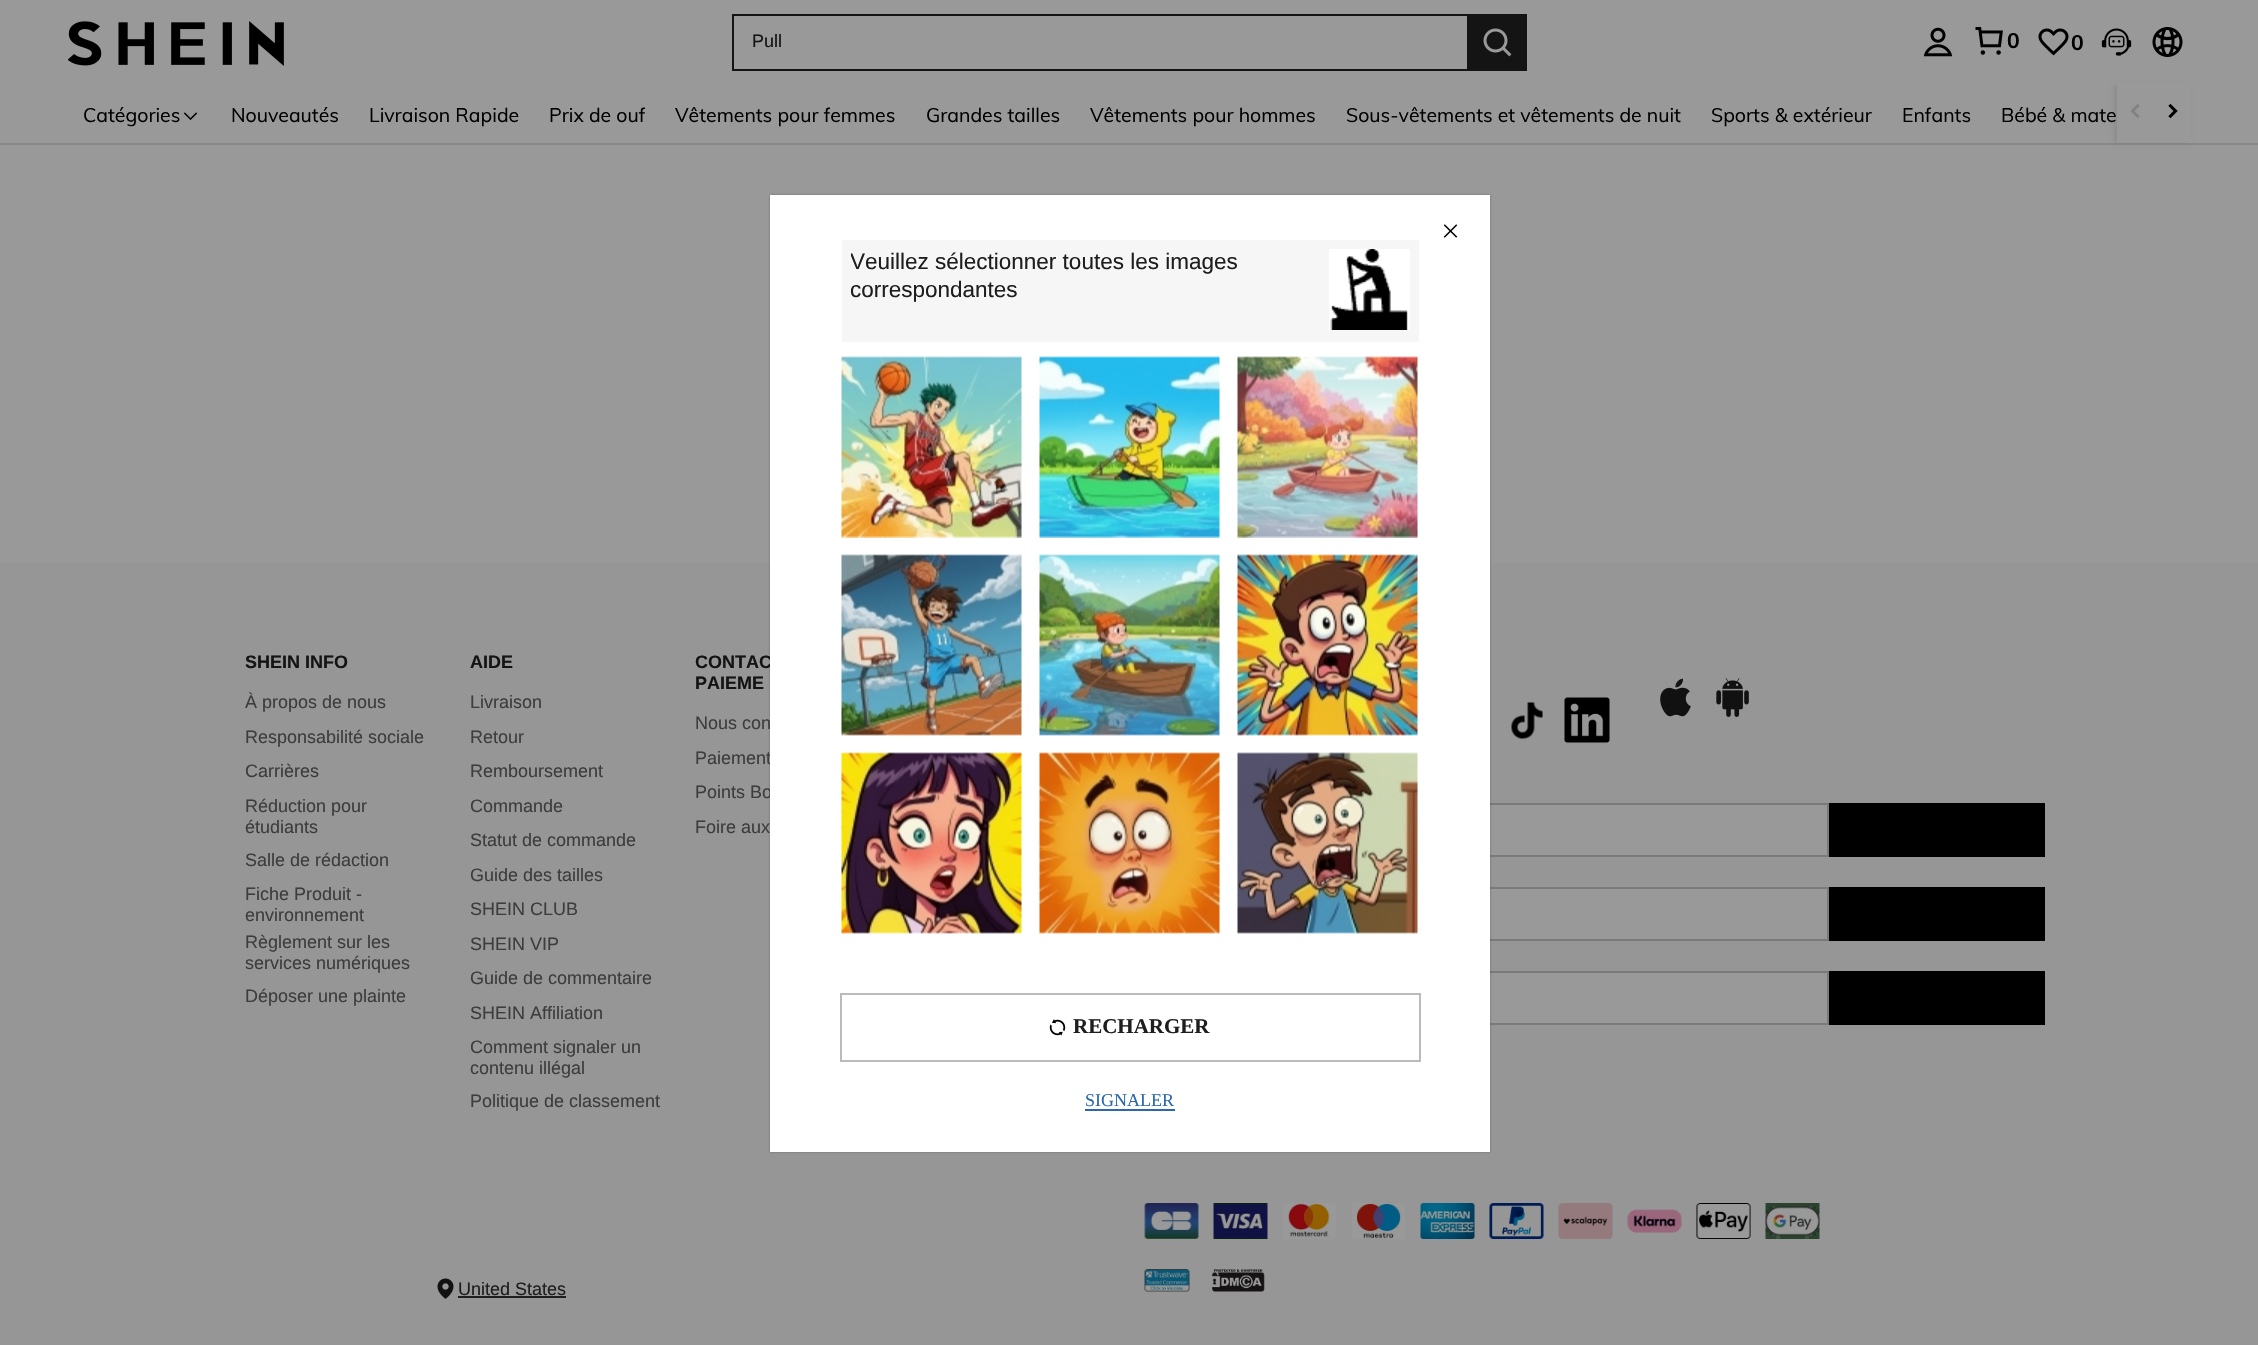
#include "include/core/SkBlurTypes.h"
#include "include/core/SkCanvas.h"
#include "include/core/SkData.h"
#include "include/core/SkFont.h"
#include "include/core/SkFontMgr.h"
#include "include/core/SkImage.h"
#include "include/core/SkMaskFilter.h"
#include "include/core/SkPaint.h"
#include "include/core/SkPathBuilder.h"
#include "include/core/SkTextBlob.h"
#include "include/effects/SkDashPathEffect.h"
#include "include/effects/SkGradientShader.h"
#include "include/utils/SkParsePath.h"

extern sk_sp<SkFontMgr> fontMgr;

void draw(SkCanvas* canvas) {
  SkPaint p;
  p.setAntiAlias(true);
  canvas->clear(SkColorSetRGB(153, 153, 153));
  p.setColor(SkColorSetRGB(137, 137, 137));
  canvas->drawRect(SkRect::MakeLTRB(0, 143, 2258, 145), p);
  p.setColor(SkColorSetARGB(20, 0, 0, 0));
  p.setMaskFilter(SkMaskFilter::MakeBlur(kNormal_SkBlurStyle, 2));
  canvas->drawRect(SkRect::MakeLTRB(2114, 84, 2189, 143), p);
  p.setMaskFilter(nullptr);
  p.setColor(SkColorSetRGB(153, 153, 153));
  canvas->drawRect(SkRect::MakeLTRB(2114, 82, 2189, 84), p);
  canvas->drawImageRect(SkImages::DeferredFromEncodedData(SkData::MakeFromFileName("images/1.png")), SkRect::MakeLTRB(68, 21, 284, 66), SkSamplingOptions());
  p.setColor(SkColorSetRGB(20, 20, 20));
  canvas->drawRect(SkRect::MakeLTRB(732, 14, 1467, 16), p);
  canvas->drawRect(SkRect::MakeLTRB(732, 69, 1467, 71), p);
  canvas->drawRect(SkRect::MakeLTRB(732, 14, 734, 71), p);
  canvas->drawRect(SkRect::MakeLTRB(1467, 14, 1527, 71), p);
  canvas->drawImageRect(SkImages::DeferredFromEncodedData(SkData::MakeFromFileName("images/2.png")), SkRect::MakeLTRB(1483, 28, 1512, 57), SkSamplingOptions());
  canvas->drawImageRect(SkImages::DeferredFromEncodedData(SkData::MakeFromFileName("images/3.png")), SkRect::MakeLTRB(1923, 27, 1953, 57), SkSamplingOptions());
  canvas->drawImageRect(SkImages::DeferredFromEncodedData(SkData::MakeFromFileName("images/4.png")), SkRect::MakeLTRB(1975, 27, 2003, 55), SkSamplingOptions());
  canvas->drawImageRect(SkImages::DeferredFromEncodedData(SkData::MakeFromFileName("images/5.png")), SkRect::MakeLTRB(2038, 28, 2069, 56), SkSamplingOptions());
  canvas->drawImageRect(SkImages::DeferredFromEncodedData(SkData::MakeFromFileName("images/6.png")), SkRect::MakeLTRB(2101, 28, 2132, 56), SkSamplingOptions());
  canvas->drawImageRect(SkImages::DeferredFromEncodedData(SkData::MakeFromFileName("images/7.png")), SkRect::MakeLTRB(2152, 27, 2183, 57), SkSamplingOptions());
  canvas->drawImageRect(SkImages::DeferredFromEncodedData(SkData::MakeFromFileName("images/8.png")), SkRect::MakeLTRB(183, 112, 198, 120), SkSamplingOptions());
  p.setColor(SkColorSetRGB(153, 153, 153));
  canvas->drawRect(SkRect::MakeLTRB(2117, 84, 2191, 143), p);
  canvas->drawImageRect(SkImages::DeferredFromEncodedData(SkData::MakeFromFileName("images/9.png")), SkRect::MakeLTRB(2130, 104, 2140, 118), SkSamplingOptions());
  canvas->drawImageRect(SkImages::DeferredFromEncodedData(SkData::MakeFromFileName("images/10.png")), SkRect::MakeLTRB(2168, 103, 2178, 119), SkSamplingOptions());
  p.setColor(SkColorSetRGB(150, 150, 150));
  canvas->drawRect(SkRect::MakeLTRB(0, 563, 2258, 1345), p);
  canvas->drawImageRect(SkImages::DeferredFromEncodedData(SkData::MakeFromFileName("images/11.png")), SkRect::MakeLTRB(1511, 702, 1543, 739), SkSamplingOptions());
  canvas->drawImageRect(SkImages::DeferredFromEncodedData(SkData::MakeFromFileName("images/12.png")), SkRect::MakeLTRB(1564, 697, 1610, 743), SkSamplingOptions());
  canvas->drawImageRect(SkImages::DeferredFromEncodedData(SkData::MakeFromFileName("images/13.png")), SkRect::MakeLTRB(1660, 678, 1691, 717), SkSamplingOptions());
  canvas->drawImageRect(SkImages::DeferredFromEncodedData(SkData::MakeFromFileName("images/14.png")), SkRect::MakeLTRB(1716, 678, 1749, 717), SkSamplingOptions());
  p.setColor(SkColorSetRGB(153, 153, 153));
  canvas->drawRect(SkRect::MakeLTRB(1490, 805, 1827, 855), p);
  p.setStyle(SkPaint::kStroke_Style);
  p.setStrokeWidth(2);
  p.setColor(SkColorSetRGB(122, 122, 122));
  canvas->drawRect(SkRect::MakeLTRB(1146, 804, 1828, 856), p);
  p.setStyle(SkPaint::kFill_Style);
  p.setColor(SK_ColorBLACK);
  canvas->drawRect(SkRect::MakeLTRB(1829, 803, 2045, 857), p);
  p.setColor(SkColorSetRGB(153, 153, 153));
  canvas->drawRect(SkRect::MakeLTRB(1490, 889, 1827, 939), p);
  p.setStyle(SkPaint::kStroke_Style);
  p.setColor(SkColorSetRGB(122, 122, 122));
  canvas->drawRect(SkRect::MakeLTRB(1266, 888, 1828, 940), p);
  p.setStyle(SkPaint::kFill_Style);
  p.setColor(SK_ColorBLACK);
  canvas->drawRect(SkRect::MakeLTRB(1829, 887, 2045, 941), p);
  p.setColor(SkColorSetRGB(153, 153, 153));
  canvas->drawRect(SkRect::MakeLTRB(1490, 973, 1827, 1023), p);
  p.setStyle(SkPaint::kStroke_Style);
  p.setColor(SkColorSetRGB(122, 122, 122));
  canvas->drawRect(SkRect::MakeLTRB(1266, 972, 1828, 1024), p);
  p.setStyle(SkPaint::kFill_Style);
  p.setColor(SK_ColorBLACK);
  canvas->drawRect(SkRect::MakeLTRB(1829, 971, 2045, 1025), p);
  canvas->drawImageRect(SkImages::DeferredFromEncodedData(SkData::MakeFromFileName("images/15.png")), SkRect::MakeLTRB(1144, 1203, 1199, 1239), SkSamplingOptions());
  canvas->drawImageRect(SkImages::DeferredFromEncodedData(SkData::MakeFromFileName("images/16.png")), SkRect::MakeLTRB(1213, 1203, 1268, 1239), SkSamplingOptions());
  canvas->drawImageRect(SkImages::DeferredFromEncodedData(SkData::MakeFromFileName("images/17.png")), SkRect::MakeLTRB(1283, 1203, 1336, 1239), SkSamplingOptions());
  canvas->drawImageRect(SkImages::DeferredFromEncodedData(SkData::MakeFromFileName("images/18.png")), SkRect::MakeLTRB(1352, 1203, 1405, 1239), SkSamplingOptions());
  canvas->drawImageRect(SkImages::DeferredFromEncodedData(SkData::MakeFromFileName("images/19.png")), SkRect::MakeLTRB(1420, 1203, 1475, 1239), SkSamplingOptions());
  canvas->drawImageRect(SkImages::DeferredFromEncodedData(SkData::MakeFromFileName("images/20.png")), SkRect::MakeLTRB(1489, 1203, 1544, 1239), SkSamplingOptions());
  canvas->drawImageRect(SkImages::DeferredFromEncodedData(SkData::MakeFromFileName("images/21.png")), SkRect::MakeLTRB(1558, 1203, 1613, 1239), SkSamplingOptions());
  canvas->drawImageRect(SkImages::DeferredFromEncodedData(SkData::MakeFromFileName("images/22.png")), SkRect::MakeLTRB(1627, 1209, 1682, 1233), SkSamplingOptions());
  canvas->drawImageRect(SkImages::DeferredFromEncodedData(SkData::MakeFromFileName("images/23.png")), SkRect::MakeLTRB(1696, 1203, 1751, 1239), SkSamplingOptions());
  canvas->drawImageRect(SkImages::DeferredFromEncodedData(SkData::MakeFromFileName("images/24.png")), SkRect::MakeLTRB(1765, 1203, 1820, 1239), SkSamplingOptions());
  canvas->drawImageRect(SkImages::DeferredFromEncodedData(SkData::MakeFromFileName("images/25.png")), SkRect::MakeLTRB(437, 1278, 454, 1299), SkSamplingOptions());
  p.setColor(SkColorSetRGB(30, 30, 30));
  canvas->drawRect(SkRect::MakeLTRB(458, 1296, 566, 1298), p);
  canvas->drawImageRect(SkImages::DeferredFromEncodedData(SkData::MakeFromFileName("images/26.png")), SkRect::MakeLTRB(1144, 1269, 1190, 1292), SkSamplingOptions());
  canvas->drawImageRect(SkImages::DeferredFromEncodedData(SkData::MakeFromFileName("images/27.png")), SkRect::MakeLTRB(1212, 1269, 1265, 1292), SkSamplingOptions());
  p.setColor(SkColorSetARGB(77, 0, 0, 0));
  p.setMaskFilter(SkMaskFilter::MakeBlur(kNormal_SkBlurStyle, 1));
  canvas->drawRect(SkRect::MakeLTRB(770, 195, 1490, 1152), p);
  p.setMaskFilter(nullptr);
  SkFont font1(fontMgr->matchFamilyStyle("Liberation Sans", SkFontStyle::Normal()), 18);
  font1.setSubpixel(true);
  p.setColor(SkColorSetRGB(20, 20, 20));
  canvas->drawString("Pull", 752, 47, font1, p);
  SkFont font2(fontMgr->matchFamilyStyle("Muli", SkFontStyle::Bold()), 21);
  font2.setSubpixel(true);
  p.setColor(SK_ColorBLACK);
  canvas->drawString("0", 2007, 48, font2, p);
  canvas->drawString("0", 2071, 50, font2, p);
  SkFont font3(fontMgr->matchFamilyStyle("Muli", SkFontStyle::Normal()), 19.5f);
  font3.setSubpixel(true);
  canvas->drawString("Catégories", 83, 122, font3, p);
  canvas->drawString("Nouveautés", 231, 122, font3, p);
  canvas->drawString("Livraison Rapide", 369, 122, font3, p);
  canvas->drawString("Prix de ouf", 549, 122, font3, p);
  canvas->drawString("Vêtements pour femmes", 675, 122, font3, p);
  canvas->drawString("Grandes tailles", 926, 122, font3, p);
  canvas->drawString("Vêtements pour hommes", 1090, 122, font3, p);
  canvas->drawString("Sous-vêtements et vêtements de nuit", 1346, 122, font3, p);
  canvas->drawString("Sports & extérieur", 1711, 122, font3, p);
  canvas->drawString("Enfants", 1902, 122, font3, p);
  canvas->drawString("Bébé & mate", 2001, 122, font3, p);
  SkFont font4(fontMgr->matchFamilyStyle("Liberation Sans", SkFontStyle::Bold()), 18);
  font4.setSubpixel(true);
  p.setColor(SkColorSetRGB(20, 20, 20));
  canvas->drawString("SHEIN INFO", 245, 668, font4, p);
  p.setColor(SkColorSetRGB(61, 61, 61));
  canvas->drawString("À propos de nous", 245, 708, font1, p);
  canvas->drawString("Responsabilité sociale", 245, 743, font1, p);
  canvas->drawString("Carrières", 245, 777, font1, p);
  canvas->drawString("Réduction pour", 245, 812, font1, p);
  canvas->drawString("étudiants", 245, 833, font1, p);
  canvas->drawString("Salle de rédaction", 245, 866, font1, p);
  canvas->drawString("Fiche Produit -", 245, 900, font1, p);
  canvas->drawString("environnement", 245, 921, font1, p);
  canvas->drawString("Règlement sur les", 245, 948, font1, p);
  canvas->drawString("services numériques", 245, 969, font1, p);
  canvas->drawString("Déposer une plainte", 245, 1002, font1, p);
  p.setColor(SkColorSetRGB(20, 20, 20));
  canvas->drawString("AIDE", 470, 668, font4, p);
  p.setColor(SkColorSetRGB(61, 61, 61));
  canvas->drawString("Livraison", 470, 708, font1, p);
  canvas->drawString("Retour", 470, 743, font1, p);
  canvas->drawString("Remboursement", 470, 777, font1, p);
  canvas->drawString("Commande", 470, 812, font1, p);
  canvas->drawString("Statut de commande", 470, 846, font1, p);
  canvas->drawString("Guide des tailles", 470, 881, font1, p);
  canvas->drawString("SHEIN CLUB", 470, 915, font1, p);
  canvas->drawString("SHEIN VIP", 470, 950, font1, p);
  canvas->drawString("Guide de commentaire", 470, 984, font1, p);
  canvas->drawString("SHEIN Affiliation", 470, 1019, font1, p);
  canvas->drawString("Comment signaler un", 470, 1053, font1, p);
  canvas->drawString("contenu illégal", 470, 1074, font1, p);
  canvas->drawString("Politique de classement", 470, 1107, font1, p);
  p.setColor(SkColorSetRGB(20, 20, 20));
  canvas->drawString("CONTAC", 695, 668, font4, p);
  canvas->drawString("PAIEME", 695, 689, font4, p);
  p.setColor(SkColorSetRGB(61, 61, 61));
  canvas->drawString("Nous con", 695, 729, font1, p);
  canvas->drawString("Paiement", 695, 764, font1, p);
  canvas->drawString("Points Bo", 695, 798, font1, p);
  canvas->drawString("Foire aux", 695, 833, font1, p);
  p.setColor(SkColorSetRGB(30, 30, 30));
  canvas->drawString("United States", 458, 1295, font1, p);
  p.setColor(SK_ColorWHITE);
  canvas->drawRect(SkRect::MakeLTRB(770, 195, 1490, 1152), p);
  canvas->drawImageRect(SkImages::DeferredFromEncodedData(SkData::MakeFromFileName("images/28.png")), SkRect::MakeLTRB(1443, 224, 1458, 238), SkSamplingOptions());
  p.setColor(SkColorSetRGB(246, 246, 246));
  canvas->drawRect(SkRect::MakeLTRB(842, 240, 1419, 342), p);
  canvas->save();
  canvas->clipRect(SkRect::MakeLTRB(851, 249, 1301, 333));
  SkFont font5(fontMgr->matchFamilyStyle("Liberation Sans", SkFontStyle::Normal()), 22.5f);
  font5.setSubpixel(true);
  p.setColor(SkColorSetRGB(30, 30, 30));
  canvas->drawString("Veuillez sélectionner toutes les images", 850, 269, font5, p);
  canvas->drawString("correspondantes", 850, 297, font5, p);
  canvas->restore();
  p.setColor(SK_ColorWHITE);
  canvas->drawRect(SkRect::MakeLTRB(1329, 249, 1410, 330), p);
  canvas->drawImageRect(SkImages::DeferredFromEncodedData(SkData::MakeFromFileName("images/29.png")), SkRect::MakeLTRB(1330, 249, 1408, 330), SkSamplingOptions());
  canvas->drawImageRect(SkImages::DeferredFromEncodedData(SkData::MakeFromFileName("images/30.png")), SkRect::MakeLTRB(841, 356, 1022, 538), SkSamplingOptions());
  canvas->drawImageRect(SkImages::DeferredFromEncodedData(SkData::MakeFromFileName("images/31.png")), SkRect::MakeLTRB(1039, 356, 1220, 538), SkSamplingOptions());
  canvas->drawImageRect(SkImages::DeferredFromEncodedData(SkData::MakeFromFileName("images/32.png")), SkRect::MakeLTRB(1237, 356, 1418, 538), SkSamplingOptions());
  canvas->drawImageRect(SkImages::DeferredFromEncodedData(SkData::MakeFromFileName("images/33.png")), SkRect::MakeLTRB(841, 554, 1022, 736), SkSamplingOptions());
  canvas->drawImageRect(SkImages::DeferredFromEncodedData(SkData::MakeFromFileName("images/34.png")), SkRect::MakeLTRB(1039, 554, 1220, 736), SkSamplingOptions());
  canvas->drawImageRect(SkImages::DeferredFromEncodedData(SkData::MakeFromFileName("images/35.png")), SkRect::MakeLTRB(1237, 554, 1418, 736), SkSamplingOptions());
  canvas->drawImageRect(SkImages::DeferredFromEncodedData(SkData::MakeFromFileName("images/36.png")), SkRect::MakeLTRB(841, 752, 1022, 934), SkSamplingOptions());
  canvas->drawImageRect(SkImages::DeferredFromEncodedData(SkData::MakeFromFileName("images/37.png")), SkRect::MakeLTRB(1039, 752, 1220, 934), SkSamplingOptions());
  canvas->drawImageRect(SkImages::DeferredFromEncodedData(SkData::MakeFromFileName("images/38.png")), SkRect::MakeLTRB(1237, 752, 1418, 934), SkSamplingOptions());
  p.setStyle(SkPaint::kStroke_Style);
  p.setColor(SkColorSetRGB(187, 187, 187));
  canvas->drawRect(SkRect::MakeLTRB(841, 994, 1420, 1061), p);
  canvas->drawImageRect(SkImages::DeferredFromEncodedData(SkData::MakeFromFileName("images/39.png")), SkRect::MakeLTRB(1049, 1019, 1066, 1036), SkSamplingOptions());
  SkFont font6(fontMgr->matchFamilyStyle("Liberation Serif", SkFontStyle::Bold()), 21);
  font6.setSubpixel(true);
  p.setStyle(SkPaint::kFill_Style);
  p.setColor(SkColorSetRGB(30, 30, 30));
  canvas->drawString("RECHARGER", 1073, 1033, font6, p);
  SkFont font7(fontMgr->matchFamilyStyle("Liberation Serif", SkFontStyle::Normal()), 18);
  font7.setSubpixel(true);
  p.setColor(SkColorSetRGB(45, 104, 168));
  canvas->drawString("SIGNALER", 1085, 1106, font7, p);
  canvas->drawRect(SkRect::MakeLTRB(1085, 1109, 1175, 1111), p);
}
